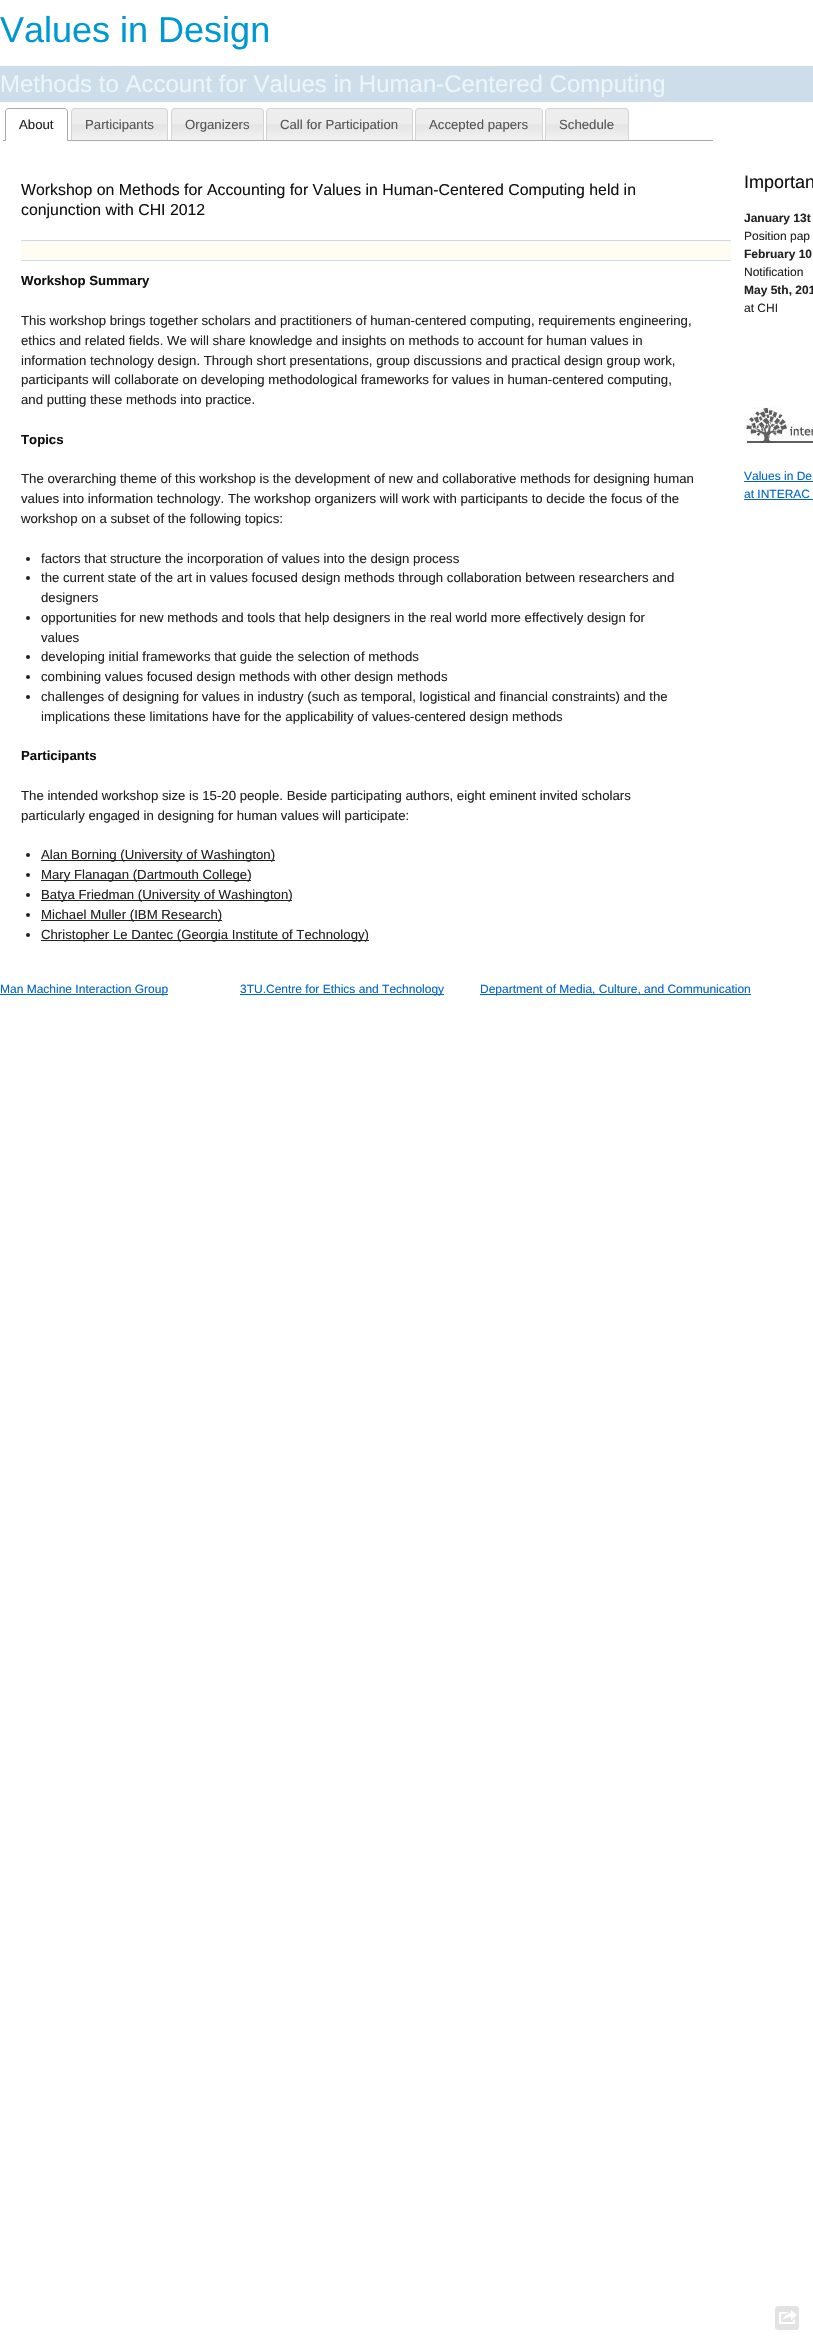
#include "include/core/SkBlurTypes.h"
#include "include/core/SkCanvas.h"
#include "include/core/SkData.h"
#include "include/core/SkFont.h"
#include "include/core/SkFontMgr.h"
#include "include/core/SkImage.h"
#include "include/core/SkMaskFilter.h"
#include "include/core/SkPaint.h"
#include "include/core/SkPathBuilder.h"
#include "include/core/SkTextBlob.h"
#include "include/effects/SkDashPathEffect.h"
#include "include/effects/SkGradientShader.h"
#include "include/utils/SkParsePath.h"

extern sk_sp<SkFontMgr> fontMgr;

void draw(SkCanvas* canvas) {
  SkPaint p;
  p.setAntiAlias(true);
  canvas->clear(SK_ColorWHITE);
  p.setColor(SkColorSetRGB(205, 221, 233));
  canvas->drawRect(SkRect::MakeLTRB(0, 66, 813, 102), p);
  p.setColor(SkColorSetRGB(170, 170, 170));
  canvas->drawRect(SkRect::MakeLTRB(3, 140, 713, 141), p);
  p.setColor(SK_ColorWHITE);
  canvas->drawPath(SkPathBuilder().moveTo(9, 108).lineTo(64, 108).cubicTo(66, 108, 68, 110, 68, 112).lineTo(68, 141).lineTo(5, 141).lineTo(5, 112).cubicTo(5, 110, 7, 108, 9, 108).close().detach(), p);
  p.setColor(SkColorSetRGB(170, 170, 170));
  canvas->drawPath(SkPathBuilder(SkPathFillType::kEvenOdd).moveTo(9, 108).lineTo(64, 108).cubicTo(66, 108, 68, 110, 68, 112).lineTo(68, 141).lineTo(5, 141).lineTo(5, 112).cubicTo(5, 110, 7, 108, 9, 108).close().moveTo(9, 109).lineTo(64, 109).cubicTo(66, 109, 67, 110, 67, 112).lineTo(67, 141).lineTo(6, 141).lineTo(6, 112).cubicTo(6, 110, 7, 109, 9, 109).close().detach(), p);
  canvas->drawImageRect(SkImages::DeferredFromEncodedData(SkData::MakeFromFileName("images/1.png")), SkRect::MakeLTRB(71, 108, 168, 140), SkSamplingOptions());
  p.setColor(SkColorSetRGB(211, 211, 211));
  canvas->drawPath(SkPathBuilder(SkPathFillType::kEvenOdd).moveTo(75, 108).lineTo(164, 108).cubicTo(166, 108, 168, 110, 168, 112).lineTo(168, 140).lineTo(71, 140).lineTo(71, 112).cubicTo(71, 110, 73, 108, 75, 108).close().moveTo(75, 109).lineTo(164, 109).cubicTo(166, 109, 167, 110, 167, 112).lineTo(167, 140).lineTo(72, 140).lineTo(72, 112).cubicTo(72, 110, 73, 109, 75, 109).close().detach(), p);
  canvas->drawImageRect(SkImages::DeferredFromEncodedData(SkData::MakeFromFileName("images/2.png")), SkRect::MakeLTRB(171, 108, 264, 140), SkSamplingOptions());
  canvas->drawPath(SkPathBuilder(SkPathFillType::kEvenOdd).moveTo(175, 108).lineTo(260, 108).cubicTo(262, 108, 264, 110, 264, 112).lineTo(264, 140).lineTo(171, 140).lineTo(171, 112).cubicTo(171, 110, 173, 108, 175, 108).close().moveTo(175, 109).lineTo(260, 109).cubicTo(262, 109, 263, 110, 263, 112).lineTo(263, 140).lineTo(172, 140).lineTo(172, 112).cubicTo(172, 110, 173, 109, 175, 109).close().detach(), p);
  canvas->drawImageRect(SkImages::DeferredFromEncodedData(SkData::MakeFromFileName("images/3.png")), SkRect::MakeLTRB(266, 108, 413, 140), SkSamplingOptions());
  canvas->drawPath(SkPathBuilder(SkPathFillType::kEvenOdd).moveTo(270, 108).lineTo(409, 108).cubicTo(411, 108, 413, 110, 413, 112).lineTo(413, 140).lineTo(266, 140).lineTo(266, 112).cubicTo(266, 110, 268, 108, 270, 108).close().moveTo(270, 109).lineTo(409, 109).cubicTo(411, 109, 412, 110, 412, 112).lineTo(412, 140).lineTo(267, 140).lineTo(267, 112).cubicTo(267, 110, 268, 109, 270, 109).close().detach(), p);
  canvas->drawImageRect(SkImages::DeferredFromEncodedData(SkData::MakeFromFileName("images/4.png")), SkRect::MakeLTRB(415, 108, 543, 140), SkSamplingOptions());
  canvas->drawPath(SkPathBuilder(SkPathFillType::kEvenOdd).moveTo(419, 108).lineTo(539, 108).cubicTo(541, 108, 543, 110, 543, 112).lineTo(543, 140).lineTo(415, 140).lineTo(415, 112).cubicTo(415, 110, 417, 108, 419, 108).close().moveTo(419, 109).lineTo(539, 109).cubicTo(541, 109, 542, 110, 542, 112).lineTo(542, 140).lineTo(416, 140).lineTo(416, 112).cubicTo(416, 110, 417, 109, 419, 109).close().detach(), p);
  canvas->drawImageRect(SkImages::DeferredFromEncodedData(SkData::MakeFromFileName("images/5.png")), SkRect::MakeLTRB(545, 108, 629, 140), SkSamplingOptions());
  canvas->drawPath(SkPathBuilder(SkPathFillType::kEvenOdd).moveTo(549, 108).lineTo(625, 108).cubicTo(627, 108, 629, 110, 629, 112).lineTo(629, 140).lineTo(545, 140).lineTo(545, 112).cubicTo(545, 110, 547, 108, 549, 108).close().moveTo(549, 109).lineTo(625, 109).cubicTo(627, 109, 628, 110, 628, 112).lineTo(628, 140).lineTo(546, 140).lineTo(546, 112).cubicTo(546, 110, 547, 109, 549, 109).close().detach(), p);
  p.setColor(SkColorSetRGB(255, 253, 243));
  canvas->drawRect(SkRect::MakeLTRB(21, 241, 731, 260), p);
  p.setColor(SkColorSetRGB(204, 217, 231));
  canvas->drawRect(SkRect::MakeLTRB(21, 240, 731, 241), p);
  canvas->drawRect(SkRect::MakeLTRB(21, 260, 731, 261), p);
  p.setColor(SkColorSetRGB(34, 34, 34));
  canvas->drawCircle(28, 559, 2, p);
  canvas->drawCircle(28, 578, 2, p);
  canvas->drawCircle(28, 618, 2, p);
  canvas->drawCircle(28, 657, 2, p);
  canvas->drawCircle(28, 677, 2, p);
  canvas->drawCircle(28, 697, 2, p);
  canvas->drawCircle(28, 855, 2, p);
  canvas->drawRect(SkRect::MakeLTRB(41, 860, 275, 861), p);
  canvas->drawCircle(28, 875, 2, p);
  canvas->drawRect(SkRect::MakeLTRB(41, 880, 251, 881), p);
  canvas->drawCircle(28, 895, 2, p);
  canvas->drawRect(SkRect::MakeLTRB(41, 900, 292, 901), p);
  canvas->drawCircle(28, 915, 2, p);
  canvas->drawRect(SkRect::MakeLTRB(41, 920, 222, 921), p);
  canvas->drawCircle(28, 935, 2, p);
  canvas->drawRect(SkRect::MakeLTRB(41, 940, 369, 941), p);
  canvas->drawImageRect(SkImages::DeferredFromEncodedData(SkData::MakeFromFileName("images/6.png")), SkRect::MakeLTRB(744, 407, 813, 444), SkSamplingOptions());
  p.setColor(SkColorSetRGB(0, 102, 204));
  canvas->drawRect(SkRect::MakeLTRB(744, 481, 813, 482), p);
  canvas->drawRect(SkRect::MakeLTRB(744, 499, 813, 500), p);
  canvas->drawRect(SkRect::MakeLTRB(0, 994, 168, 995), p);
  canvas->drawRect(SkRect::MakeLTRB(240, 994, 444, 995), p);
  canvas->drawRect(SkRect::MakeLTRB(480, 994, 751, 995), p);
  canvas->drawImageRect(SkImages::DeferredFromEncodedData(SkData::MakeFromFileName("images/7.png")), SkRect::MakeLTRB(775, 2306, 799, 2330), SkSamplingOptions());
  SkFont font1(fontMgr->matchFamilyStyle("Liberation Sans", SkFontStyle::Normal()), 36);
  font1.setSubpixel(true);
  p.setColor(SkColorSetRGB(0, 152, 211));
  canvas->drawString("Values in Design", 0, 42, font1, p);
  SkFont font2(fontMgr->matchFamilyStyle("Liberation Sans", SkFontStyle::Normal()), 24);
  font2.setSubpixel(true);
  p.setColor(SkColorSetRGB(236, 245, 250));
  canvas->drawString("Methods to Account for Values in Human-Centered Computing", 0, 92, font2, p);
  SkFont font3(fontMgr->matchFamilyStyle("Liberation Sans", SkFontStyle::Normal()), 13.2f);
  font3.setSubpixel(true);
  p.setColor(SkColorSetRGB(34, 34, 34));
  canvas->drawString("About", 19, 129, font3, p);
  p.setColor(SkColorSetRGB(85, 85, 85));
  canvas->drawString("Participants", 85, 129, font3, p);
  canvas->drawString("Organizers", 185, 129, font3, p);
  canvas->drawString("Call for Participation", 280, 129, font3, p);
  canvas->drawString("Accepted papers", 429, 129, font3, p);
  canvas->drawString("Schedule", 559, 129, font3, p);
  SkFont font4(fontMgr->matchFamilyStyle("Liberation Sans", SkFontStyle::Normal()), 15.85f);
  font4.setSubpixel(true);
  p.setColor(SkColorSetRGB(17, 17, 17));
  canvas->drawString("Workshop on Methods for Accounting for Values in Human-Centered Computing held in", 21, 195, font4, p);
  canvas->drawString("conjunction with CHI 2012", 21, 215, font4, p);
  SkFont font5(fontMgr->matchFamilyStyle("Liberation Sans", SkFontStyle::Bold()), 13.2f);
  font5.setSubpixel(true);
  canvas->drawString("Workshop Summary", 21, 285, font5, p);
  p.setColor(SkColorSetRGB(34, 34, 34));
  canvas->drawString("This workshop brings together scholars and practitioners of human-centered computing, requirements engineering,", 21, 325, font3, p);
  canvas->drawString("ethics and related fields. We will share knowledge and insights on methods to account for human values in", 21, 345, font3, p);
  canvas->drawString("information technology design. Through short presentations, group discussions and practical design group work,", 21, 365, font3, p);
  canvas->drawString("participants will collaborate on developing methodological frameworks for values in human-centered computing,", 21, 384, font3, p);
  canvas->drawString("and putting these methods into practice.", 21, 404, font3, p);
  p.setColor(SkColorSetRGB(17, 17, 17));
  canvas->drawString("Topics", 21, 444, font5, p);
  p.setColor(SkColorSetRGB(34, 34, 34));
  canvas->drawString("The overarching theme of this workshop is the development of new and collaborative methods for designing human", 21, 483, font3, p);
  canvas->drawString("values into information technology. The workshop organizers will work with participants to decide the focus of the", 21, 503, font3, p);
  canvas->drawString("workshop on a subset of the following topics:", 21, 523, font3, p);
  canvas->drawString("factors that structure the incorporation of values into the design process", 41, 563, font3, p);
  canvas->drawString("the current state of the art in values focused design methods through collaboration between researchers and", 41, 582, font3, p);
  canvas->drawString("designers", 41, 602, font3, p);
  canvas->drawString("opportunities for new methods and tools that help designers in the real world more effectively design for", 41, 622, font3, p);
  canvas->drawString("values", 41, 642, font3, p);
  canvas->drawString("developing initial frameworks that guide the selection of methods", 41, 661, font3, p);
  canvas->drawString("combining values focused design methods with other design methods", 41, 681, font3, p);
  canvas->drawString("challenges of designing for values in industry (such as temporal, logistical and financial constraints) and the", 41, 701, font3, p);
  canvas->drawString("implications these limitations have for the applicability of values-centered design methods", 41, 721, font3, p);
  p.setColor(SkColorSetRGB(17, 17, 17));
  canvas->drawString("Participants", 21, 760, font5, p);
  p.setColor(SkColorSetRGB(34, 34, 34));
  canvas->drawString("The intended workshop size is 15-20 people. Beside participating authors, eight eminent invited scholars", 21, 800, font3, p);
  canvas->drawString("particularly engaged in designing for human values will participate:", 21, 820, font3, p);
  canvas->drawString("Alan Borning (University of Washington)", 41, 859, font3, p);
  canvas->drawString("Mary Flanagan (Dartmouth College)", 41, 879, font3, p);
  canvas->drawString("Batya Friedman (University of Washington)", 41, 899, font3, p);
  canvas->drawString("Michael Muller (IBM Research)", 41, 919, font3, p);
  canvas->drawString("Christopher Le Dantec (Georgia Institute of Technology)", 41, 939, font3, p);
  SkFont font6(fontMgr->matchFamilyStyle("Liberation Sans", SkFontStyle::Normal()), 18);
  font6.setSubpixel(true);
  p.setColor(SkColorSetRGB(17, 17, 17));
  canvas->drawString("Importan", 744, 188, font6, p);
  SkFont font7(fontMgr->matchFamilyStyle("Liberation Sans", SkFontStyle::Bold()), 12);
  font7.setSubpixel(true);
  p.setColor(SkColorSetRGB(34, 34, 34));
  canvas->drawString("January 13t", 744, 222, font7, p);
  SkFont font8(fontMgr->matchFamilyStyle("Liberation Sans", SkFontStyle::Normal()), 12);
  font8.setSubpixel(true);
  canvas->drawString("Position pap", 744, 240, font8, p);
  canvas->drawString("February 10", 744, 258, font7, p);
  canvas->drawString("Notification", 744, 276, font8, p);
  canvas->drawString("May 5th, 201", 744, 294, font7, p);
  canvas->drawString("at CHI", 744, 312, font8, p);
  p.setColor(SkColorSetRGB(0, 102, 204));
  canvas->drawString("Values in De", 744, 480, font8, p);
  canvas->drawString("at INTERAC", 744, 498, font8, p);
  canvas->drawString("Man Machine Interaction Group", 0, 993, font8, p);
  canvas->drawString("3TU.Centre for Ethics and Technology", 240, 993, font8, p);
  canvas->drawString("Department of Media, Culture, and Communication", 480, 993, font8, p);
}
